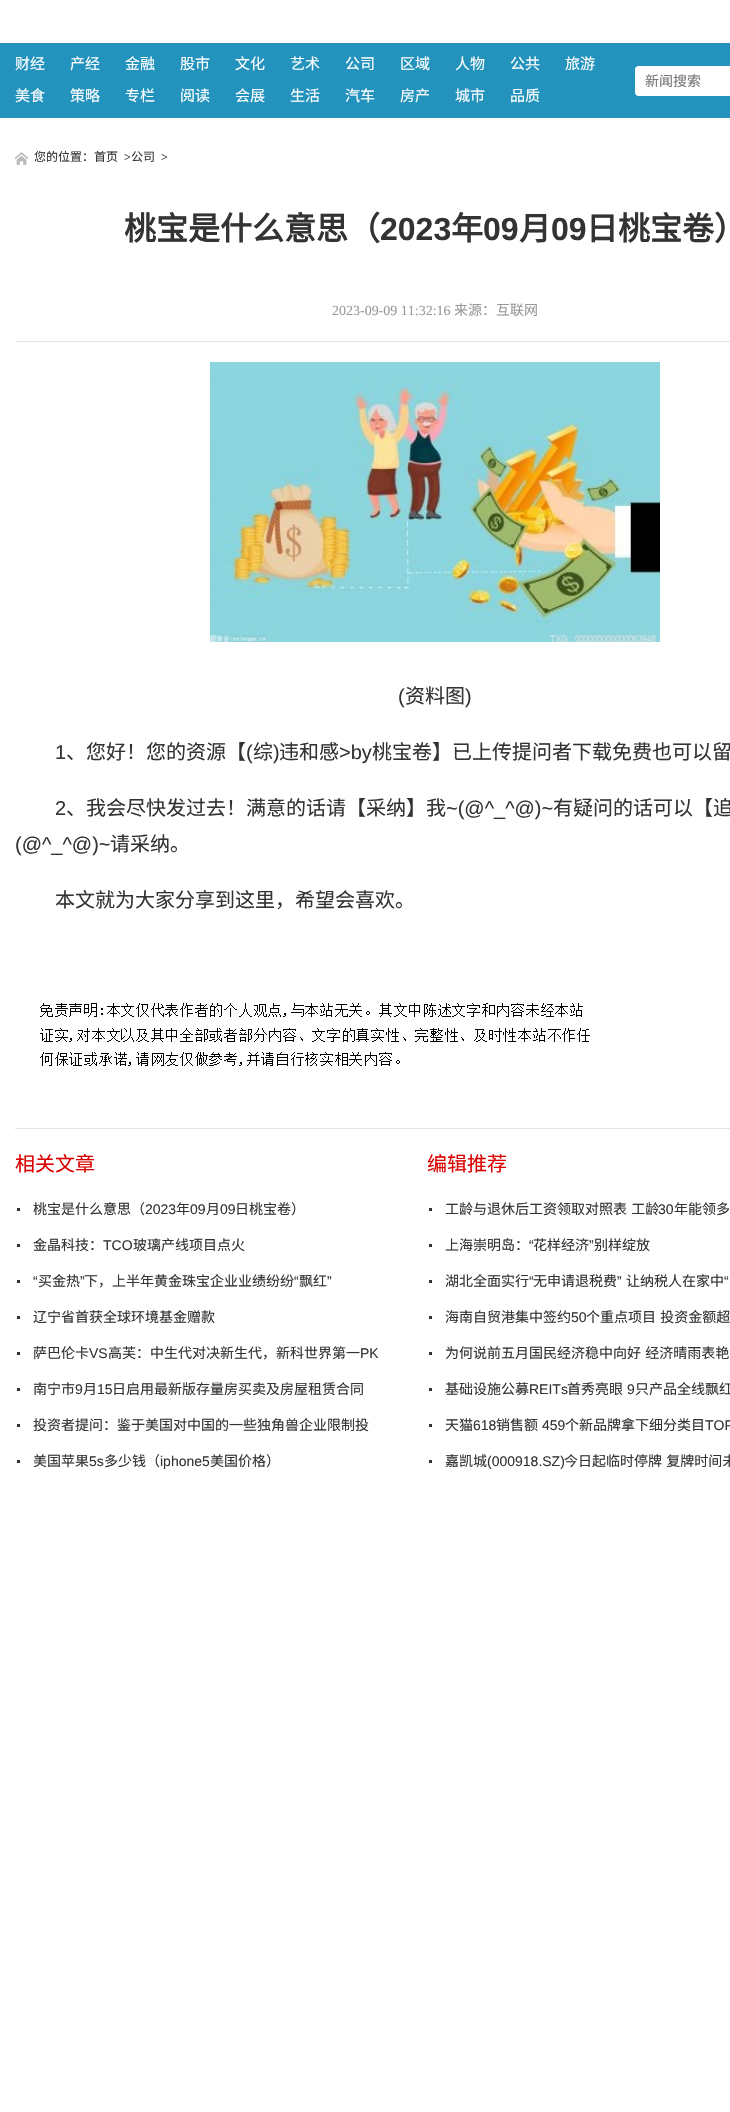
#include "include/core/SkBlurTypes.h"
#include "include/core/SkCanvas.h"
#include "include/core/SkData.h"
#include "include/core/SkFont.h"
#include "include/core/SkFontMgr.h"
#include "include/core/SkImage.h"
#include "include/core/SkMaskFilter.h"
#include "include/core/SkPaint.h"
#include "include/core/SkPathBuilder.h"
#include "include/core/SkTextBlob.h"
#include "include/effects/SkDashPathEffect.h"
#include "include/effects/SkGradientShader.h"
#include "include/utils/SkParsePath.h"

extern sk_sp<SkFontMgr> fontMgr;

void draw(SkCanvas* canvas) {
  SkPaint p;
  p.setAntiAlias(true);
  auto spacedText = [&](const char* s, float x, float y, const SkFont& font, const SkPaint& ink, float letter, float word) {
    std::vector<SkGlyphID> glyphs(font.countText(s, strlen(s), SkTextEncoding::kUTF8));
    std::vector<float> xs(glyphs.size());
    font.textToGlyphs(s, strlen(s), SkTextEncoding::kUTF8, glyphs);
    font.getXPos(glyphs, xs, x);
    float extra = 0;
    for (size_t i = 0; i < glyphs.size(); i++) {
      xs[i] += extra;
      extra += letter + word * (glyphs[i] == font.unicharToGlyph(' '));
    }
    canvas->drawTextBlob(SkTextBlob::MakeFromPosHGlyphs(glyphs, xs, y, font), 0, 0, ink);
  };
  canvas->clear(SK_ColorWHITE);
  p.setColor(SkColorSetRGB(35, 147, 190));
  canvas->drawRect(SkRect::MakeLTRB(0, 43, 730, 118), p);
  p.setColor(SK_ColorWHITE);
  canvas->drawRoundRect(SkRect::MakeLTRB(635, 66, 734, 96), 4, 4, p);
  canvas->drawImageRect(SkImages::DeferredFromEncodedData(SkData::MakeFromFileName("images/1.png")), SkRect::MakeLTRB(15, 152, 28, 165), SkSamplingOptions());
  p.setColor(SkColorSetRGB(229, 229, 229));
  canvas->drawRect(SkRect::MakeLTRB(15, 1128, 730, 1129), p);
  canvas->drawRect(SkRect::MakeLTRB(15, 341, 730, 342), p);
  canvas->drawImageRect(SkImages::DeferredFromEncodedData(SkData::MakeFromFileName("images/2.png")), SkRect::MakeLTRB(210, 362, 660, 642), SkSamplingOptions());
  canvas->drawImageRect(SkImages::DeferredFromEncodedData(SkData::MakeFromFileName("images/3.png")), SkRect::MakeLTRB(40, 1003, 590, 1066), SkSamplingOptions());
  p.setColor(SkColorSetRGB(51, 51, 51));
  canvas->drawRect(SkRect::MakeLTRB(17, 1208, 20, 1211), p);
  canvas->drawRect(SkRect::MakeLTRB(17, 1244, 20, 1247), p);
  canvas->drawRect(SkRect::MakeLTRB(17, 1280, 20, 1283), p);
  canvas->drawRect(SkRect::MakeLTRB(17, 1316, 20, 1319), p);
  canvas->drawRect(SkRect::MakeLTRB(17, 1352, 20, 1355), p);
  canvas->drawRect(SkRect::MakeLTRB(17, 1388, 20, 1391), p);
  canvas->drawRect(SkRect::MakeLTRB(17, 1424, 20, 1427), p);
  canvas->drawRect(SkRect::MakeLTRB(17, 1460, 20, 1463), p);
  canvas->drawRect(SkRect::MakeLTRB(429, 1208, 432, 1211), p);
  canvas->drawRect(SkRect::MakeLTRB(429, 1244, 432, 1247), p);
  canvas->drawRect(SkRect::MakeLTRB(429, 1280, 432, 1283), p);
  canvas->drawRect(SkRect::MakeLTRB(429, 1316, 432, 1319), p);
  canvas->drawRect(SkRect::MakeLTRB(429, 1352, 432, 1355), p);
  canvas->drawRect(SkRect::MakeLTRB(429, 1388, 432, 1391), p);
  canvas->drawRect(SkRect::MakeLTRB(429, 1424, 432, 1427), p);
  canvas->drawRect(SkRect::MakeLTRB(429, 1460, 432, 1463), p);
  SkFont font1(fontMgr->matchFamilyStyle("Noto Sans CJK SC", SkFontStyle::Normal()), 15);
  font1.setSubpixel(true);
  p.setColor(SK_ColorWHITE);
  canvas->drawString("财经", 15, 69, font1, p);
  canvas->drawString("产经", 70, 69, font1, p);
  canvas->drawString("金融", 125, 69, font1, p);
  canvas->drawString("股市", 180, 69, font1, p);
  canvas->drawString("文化", 235, 69, font1, p);
  canvas->drawString("艺术", 290, 69, font1, p);
  canvas->drawString("公司", 345, 69, font1, p);
  canvas->drawString("区域", 400, 69, font1, p);
  canvas->drawString("人物", 455, 69, font1, p);
  canvas->drawString("公共", 510, 69, font1, p);
  canvas->drawString("旅游", 565, 69, font1, p);
  canvas->drawString("美食", 15, 101, font1, p);
  canvas->drawString("策略", 70, 101, font1, p);
  canvas->drawString("专栏", 125, 101, font1, p);
  canvas->drawString("阅读", 180, 101, font1, p);
  canvas->drawString("会展", 235, 101, font1, p);
  canvas->drawString("生活", 290, 101, font1, p);
  canvas->drawString("汽车", 345, 101, font1, p);
  canvas->drawString("房产", 400, 101, font1, p);
  canvas->drawString("城市", 455, 101, font1, p);
  canvas->drawString("品质", 510, 101, font1, p);
  SkFont font2(fontMgr->matchFamilyStyle("Noto Sans CJK SC", SkFontStyle::Normal()), 14);
  font2.setSubpixel(true);
  p.setColor(SkColorSetRGB(117, 117, 117));
  canvas->drawString("新闻搜索", 645, 86, font2, p);
  SkFont font3(fontMgr->matchFamilyStyle("Noto Sans CJK SC", SkFontStyle::Normal()), 12);
  font3.setSubpixel(true);
  p.setColor(SkColorSetRGB(51, 51, 51));
  canvas->drawString("您的位置：首页", 34, 161, font3, p);
  SkFont font4(fontMgr->matchFamilyStyle("Liberation Serif", SkFontStyle::Normal()), 12);
  font4.setSubpixel(true);
  canvas->drawString(">", 124, 161, font4, p);
  canvas->drawString("公司", 131, 161, font3, p);
  canvas->drawString(">", 161, 161, font4, p);
  SkFont font5(fontMgr->matchFamilyStyle("Noto Sans CJK SC", SkFontStyle::Bold()), 32);
  font5.setSubpixel(true);
  canvas->drawString("桃宝是什么意思（", 124, 240, font5, p);
  SkFont font6(fontMgr->matchFamilyStyle("Liberation Sans", SkFontStyle::Bold()), 32);
  font6.setSubpixel(true);
  canvas->drawString("2023", 380, 240, font6, p);
  canvas->drawString("年", 451, 240, font5, p);
  canvas->drawString("09", 483, 240, font6, p);
  canvas->drawString("月", 519, 240, font5, p);
  canvas->drawString("09", 551, 240, font6, p);
  canvas->drawString("日桃宝卷）", 586, 240, font5, p);
  SkFont font7(fontMgr->matchFamilyStyle("Liberation Serif", SkFontStyle::Normal()), 14);
  font7.setSubpixel(true);
  p.setColor(SkColorSetRGB(153, 153, 153));
  canvas->drawString("2023-09-09 11:32:16", 332, 315, font7, p);
  canvas->drawString("来源：互联网", 454, 315, font2, p);
  SkFont font8(fontMgr->matchFamilyStyle("Liberation Sans", SkFontStyle::Normal()), 20);
  font8.setSubpixel(true);
  p.setColor(SkColorSetRGB(51, 51, 51));
  canvas->drawString("(", 398, 703, font8, p);
  SkFont font9(fontMgr->matchFamilyStyle("Noto Sans CJK SC", SkFontStyle::Normal()), 20);
  font9.setSubpixel(true);
  canvas->drawString("资料图", 405, 703, font9, p);
  canvas->drawString(")", 465, 703, font8, p);
  canvas->drawString("1", 55, 759, font8, p);
  canvas->drawString("、您好！您的资源【", 66, 759, font9, p);
  canvas->drawString("(", 246, 759, font8, p);
  canvas->drawString("综", 253, 759, font9, p);
  canvas->drawString(")", 273, 759, font8, p);
  canvas->drawString("违和感", 279, 759, font9, p);
  canvas->drawString(">by", 339, 759, font8, p);
  canvas->drawString("桃宝卷】已上传提问者下载免费也可以留", 372, 759, font9, p);
  canvas->drawString("2", 55, 815, font8, p);
  canvas->drawString("、我会尽快发过去！满意的话请【采纳】我", 66, 815, font9, p);
  canvas->drawString("~(@^_^@)~", 446, 815, font8, p);
  canvas->drawString("有疑问的话可以【追", 553, 815, font9, p);
  canvas->drawString("(@^_^@)~", 15, 851, font8, p);
  canvas->drawString("请采纳。", 110, 851, font9, p);
  canvas->drawString("本文就为大家分享到这里，希望会喜欢。", 55, 907, font9, p);
  p.setColor(SkColorSetRGB(219, 1, 0));
  canvas->drawString("相关文章", 15, 1171, font9, p);
  p.setColor(SkColorSetRGB(51, 51, 51));
  canvas->drawString("桃宝是什么意思（", 33, 1214, font2, p);
  SkFont font10(fontMgr->matchFamilyStyle("Liberation Sans", SkFontStyle::Normal()), 14);
  font10.setSubpixel(true);
  canvas->drawString("2023", 145, 1214, font10, p);
  canvas->drawString("年", 176, 1214, font2, p);
  canvas->drawString("09", 190, 1214, font10, p);
  canvas->drawString("月", 206, 1214, font2, p);
  canvas->drawString("09", 220, 1214, font10, p);
  canvas->drawString("日桃宝卷）", 235, 1214, font2, p);
  canvas->drawString("金晶科技：", 33, 1250, font2, p);
  canvas->drawString("TCO", 103, 1250, font10, p);
  canvas->drawString("玻璃产线项目点火", 133, 1250, font2, p);
  canvas->drawString("“", 33, 1286, font10, p);
  canvas->drawString("买金热", 38, 1286, font2, p);
  canvas->drawString("”", 80, 1286, font10, p);
  canvas->drawString("下，上半年黄金珠宝企业业绩纷纷", 84, 1286, font2, p);
  canvas->drawString("“", 294, 1286, font10, p);
  canvas->drawString("飘红", 299, 1286, font2, p);
  canvas->drawString("”", 327, 1286, font10, p);
  canvas->drawString("辽宁省首获全球环境基金赠款", 33, 1322, font2, p);
  canvas->drawString("萨巴伦卡", 33, 1358, font2, p);
  canvas->drawString("VS", 89, 1358, font10, p);
  canvas->drawString("高芙：中生代对决新生代，新科世界第一", 108, 1358, font2, p);
  canvas->drawString("PK", 360, 1358, font10, p);
  canvas->drawString("南宁市", 33, 1394, font2, p);
  canvas->drawString("9", 75, 1394, font10, p);
  canvas->drawString("月", 83, 1394, font2, p);
  canvas->drawString("15", 97, 1394, font10, p);
  canvas->drawString("日启用最新版存量房买卖及房屋租赁合同", 112, 1394, font2, p);
  canvas->drawString("投资者提问：鉴于美国对中国的一些独角兽企业限制投", 33, 1430, font2, p);
  canvas->drawString("美国苹果", 33, 1466, font2, p);
  canvas->drawString("5s", 89, 1466, font10, p);
  canvas->drawString("多少钱（", 104, 1466, font2, p);
  canvas->drawString("iphone5", 160, 1466, font10, p);
  canvas->drawString("美国价格）", 210, 1466, font2, p);
  p.setColor(SkColorSetRGB(219, 1, 0));
  canvas->drawString("编辑推荐", 427, 1171, font9, p);
  p.setColor(SkColorSetRGB(51, 51, 51));
  spacedText("工龄与退休后工资领取对照表 工龄", 445, 1214, font2, p, 0, 1);
  canvas->drawString("30", 658, 1214, font10, p);
  canvas->drawString("年能领多", 674, 1214, font2, p);
  canvas->drawString("上海崇明岛：", 445, 1250, font2, p);
  canvas->drawString("“", 529, 1250, font10, p);
  canvas->drawString("花样经济", 533, 1250, font2, p);
  canvas->drawString("”", 589, 1250, font10, p);
  canvas->drawString("别样绽放", 594, 1250, font2, p);
  canvas->drawString("湖北全面实行", 445, 1286, font2, p);
  canvas->drawString("“", 529, 1286, font10, p);
  canvas->drawString("无申请退税费", 533, 1286, font2, p);
  canvas->drawString("”", 617, 1286, font10, p);
  canvas->drawString("让纳税人在家中", 626, 1286, font2, p);
  canvas->drawString("“", 724, 1286, font10, p);
  canvas->drawString("海南自贸港集中签约", 445, 1322, font2, p);
  canvas->drawString("50", 571, 1322, font10, p);
  spacedText("个重点项目 投资金额超", 586, 1322, font2, p, 0, 1);
  spacedText("为何说前五月国民经济稳中向好 经济晴雨表艳", 445, 1358, font2, p, 0, 1);
  canvas->drawString("基础设施公募", 445, 1394, font2, p);
  canvas->drawString("REITs", 529, 1394, font10, p);
  canvas->drawString("首秀亮眼", 567, 1394, font2, p);
  canvas->drawString("9", 627, 1394, font10, p);
  canvas->drawString("只产品全线飘红", 635, 1394, font2, p);
  canvas->drawString("天猫", 445, 1430, font2, p);
  canvas->drawString("618", 473, 1430, font10, p);
  canvas->drawString("销售额", 496, 1430, font2, p);
  canvas->drawString("459", 542, 1430, font10, p);
  canvas->drawString("个新品牌拿下细分类目", 565, 1430, font2, p);
  canvas->drawString("TOP", 705, 1430, font10, p);
  canvas->drawString("嘉凯城", 445, 1466, font2, p);
  canvas->drawString("(000918.SZ)", 487, 1466, font10, p);
  spacedText("今日起临时停牌 复牌时间未", 564, 1466, font2, p, 0, 1);
}
